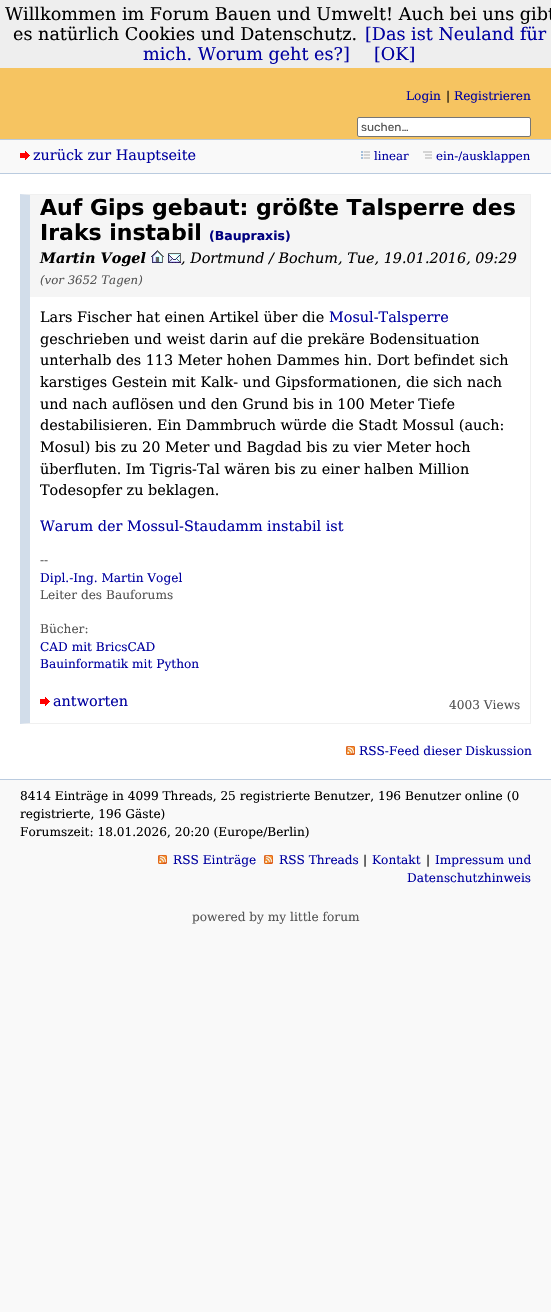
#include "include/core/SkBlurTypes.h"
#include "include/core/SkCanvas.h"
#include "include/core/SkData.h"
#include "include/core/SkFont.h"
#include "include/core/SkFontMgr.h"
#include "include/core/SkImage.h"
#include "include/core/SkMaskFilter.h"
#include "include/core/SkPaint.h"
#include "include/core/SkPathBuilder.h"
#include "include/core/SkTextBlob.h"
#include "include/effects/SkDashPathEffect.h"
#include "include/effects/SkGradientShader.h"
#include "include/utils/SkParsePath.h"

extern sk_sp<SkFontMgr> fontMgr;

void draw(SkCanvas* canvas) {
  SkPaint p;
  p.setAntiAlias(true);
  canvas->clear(SkColorSetRGB(249, 249, 249));
  p.setColor(SkColorSetRGB(238, 238, 238));
  canvas->drawRect(SkRect::MakeLTRB(0, 0, 551, 68), p);
  p.setColor(SkColorSetRGB(246, 196, 97));
  canvas->drawRect(SkRect::MakeLTRB(0, 68, 551, 139), p);
  p.setColor(SK_ColorWHITE);
  canvas->drawRoundRect(SkRect::MakeLTRB(357.5f, 117.5f, 530.5f, 136.5f), 1.5f, 1.5f, p);
  p.setStyle(SkPaint::kStroke_Style);
  p.setStrokeWidth(1);
  p.setColor(SkColorSetRGB(118, 118, 118));
  canvas->drawRoundRect(SkRect::MakeLTRB(357.5f, 117.5f, 530.5f, 136.5f), 1.5f, 1.5f, p);
  p.setStyle(SkPaint::kFill_Style);
  p.setColor(SkColorSetRGB(186, 203, 223));
  canvas->drawRect(SkRect::MakeLTRB(0, 139, 551, 140), p);
  canvas->drawRect(SkRect::MakeLTRB(0, 173, 551, 174), p);
  canvas->drawImageRect(SkImages::DeferredFromEncodedData(SkData::MakeFromFileName("images/1.png")), SkRect::MakeLTRB(20, 151, 30, 160), SkSamplingOptions());
  canvas->drawImageRect(SkImages::DeferredFromEncodedData(SkData::MakeFromFileName("images/2.png")), SkRect::MakeLTRB(361, 151, 370, 159), SkSamplingOptions());
  canvas->drawImageRect(SkImages::DeferredFromEncodedData(SkData::MakeFromFileName("images/3.png")), SkRect::MakeLTRB(423, 151, 432, 159), SkSamplingOptions());
  p.setColor(SK_ColorWHITE);
  canvas->drawRect(SkRect::MakeLTRB(0, 174, 551, 779), p);
  p.setColor(SkColorSetRGB(240, 240, 240));
  canvas->drawPath(SkPathBuilder().moveTo(20, 194).lineTo(531, 194).lineTo(530, 195).lineTo(30, 195).close().detach(), p);
  canvas->drawRect(SkRect::MakeLTRB(530, 194, 531, 724), p);
  canvas->drawPath(SkPathBuilder().moveTo(531, 724).lineTo(20, 724).lineTo(30, 723).lineTo(530, 723).close().detach(), p);
  p.setColor(SkColorSetRGB(210, 221, 234));
  canvas->drawPath(SkPathBuilder().moveTo(20, 724).lineTo(20, 194).lineTo(30, 195).lineTo(30, 723).close().detach(), p);
  p.setColor(SkColorSetRGB(245, 245, 245));
  canvas->drawRect(SkRect::MakeLTRB(30, 195, 530, 297), p);
  canvas->drawImageRect(SkImages::DeferredFromEncodedData(SkData::MakeFromFileName("images/4.png")), SkRect::MakeLTRB(151, 250, 164, 263), SkSamplingOptions());
  canvas->drawImageRect(SkImages::DeferredFromEncodedData(SkData::MakeFromFileName("images/5.png")), SkRect::MakeLTRB(168, 253, 181, 263), SkSamplingOptions());
  canvas->drawImageRect(SkImages::DeferredFromEncodedData(SkData::MakeFromFileName("images/6.png")), SkRect::MakeLTRB(40, 697, 50, 706), SkSamplingOptions());
  canvas->drawImageRect(SkImages::DeferredFromEncodedData(SkData::MakeFromFileName("images/7.png")), SkRect::MakeLTRB(346, 746, 355, 755), SkSamplingOptions());
  p.setColor(SkColorSetRGB(186, 203, 223));
  canvas->drawRect(SkRect::MakeLTRB(0, 779, 551, 780), p);
  canvas->drawImageRect(SkImages::DeferredFromEncodedData(SkData::MakeFromFileName("images/7.png")), SkRect::MakeLTRB(158, 855, 167, 864), SkSamplingOptions());
  canvas->drawImageRect(SkImages::DeferredFromEncodedData(SkData::MakeFromFileName("images/7.png")), SkRect::MakeLTRB(264, 855, 273, 864), SkSamplingOptions());
  SkFont font1(fontMgr->matchFamilyStyle("DejaVu Serif", SkFontStyle::Normal()), 17.6f);
  font1.setSubpixel(true);
  p.setColor(SK_ColorBLACK);
  canvas->drawString("Willkommen im Forum Bauen und Umwelt! Auch bei uns gibt", 5, 20, font1, p);
  canvas->drawString("es natürlich Cookies und Datenschutz.", 13, 40, font1, p);
  p.setColor(SkColorSetRGB(0, 0, 160));
  canvas->drawString("[Das ist Neuland für", 365, 40, font1, p);
  canvas->drawString("mich. Worum geht es?]", 143, 60, font1, p);
  canvas->drawString("[OK]", 374, 60, font1, p);
  SkFont font2(fontMgr->matchFamilyStyle("DejaVu Serif", SkFontStyle::Normal()), 12.15f);
  font2.setSubpixel(true);
  canvas->drawString("Login", 406, 100, font2, p);
  p.setColor(SK_ColorBLACK);
  canvas->drawString("|", 446, 100, font2, p);
  p.setColor(SkColorSetRGB(0, 0, 160));
  canvas->drawString("Registrieren", 454, 100, font2, p);
  SkFont font3(fontMgr->matchFamilyStyle("Rubik", SkFontStyle::Normal()), 11.75f);
  font3.setSubpixel(true);
  p.setColor(SkColorSetRGB(84, 84, 84));
  canvas->drawString("suchen…", 361, 131, font3, p);
  SkFont font4(fontMgr->matchFamilyStyle("DejaVu Serif", SkFontStyle::Normal()), 14.4f);
  font4.setSubpixel(true);
  p.setColor(SkColorSetRGB(0, 0, 160));
  canvas->drawString("zurück zur Hauptseite", 33, 160, font4, p);
  SkFont font5(fontMgr->matchFamilyStyle("DejaVu Serif", SkFontStyle::Normal()), 11.75f);
  font5.setSubpixel(true);
  canvas->drawString("linear", 374, 160, font5, p);
  canvas->drawString("ein-/ausklappen", 436, 160, font5, p);
  SkFont font6(fontMgr->matchFamilyStyle("DejaVu Sans", SkFontStyle::Bold()), 22);
  font6.setSubpixel(true);
  p.setColor(SK_ColorBLACK);
  canvas->drawString("Auf Gips gebaut: größte Talsperre des", 40, 215, font6, p);
  canvas->drawString("Iraks instabil", 40, 240, font6, p);
  SkFont font7(fontMgr->matchFamilyStyle("DejaVu Sans", SkFontStyle::Bold()), 12.5f);
  font7.setSubpixel(true);
  p.setColor(SkColorSetRGB(0, 0, 128));
  canvas->drawString("(Baupraxis)", 209, 240, font7, p);
  SkFont font8(fontMgr->matchFamilyStyle("DejaVu Serif", SkFontStyle::BoldItalic()), 14.4f);
  font8.setSubpixel(true);
  p.setColor(SK_ColorBLACK);
  canvas->drawString("Martin Vogel", 40, 263, font8, p);
  SkFont font9(fontMgr->matchFamilyStyle("DejaVu Serif", SkFontStyle::Italic()), 14.4f);
  font9.setSubpixel(true);
  canvas->drawString(", Dortmund / Bochum, Tue, 19.01.2016, 09:29", 181, 263, font9, p);
  SkFont font10(fontMgr->matchFamilyStyle("DejaVu Serif", SkFontStyle::Italic()), 11.75f);
  font10.setSubpixel(true);
  p.setColor(SkColorSetRGB(84, 84, 84));
  canvas->drawString("(vor 3652 Tagen)", 40, 284, font10, p);
  p.setColor(SK_ColorBLACK);
  canvas->drawString("Lars Fischer hat einen Artikel über die", 40, 322, font4, p);
  p.setColor(SkColorSetRGB(0, 0, 160));
  canvas->drawString("Mosul-Talsperre", 329, 322, font4, p);
  p.setColor(SK_ColorBLACK);
  canvas->drawString("geschrieben und weist darin auf die prekäre Bodensituation", 40, 344, font4, p);
  canvas->drawString("unterhalb des 113 Meter hohen Dammes hin. Dort befindet sich", 40, 365, font4, p);
  canvas->drawString("karstiges Gestein mit Kalk- und Gipsformationen, die sich nach", 40, 387, font4, p);
  canvas->drawString("und nach auflösen und den Grund bis in 100 Meter Tiefe", 40, 409, font4, p);
  canvas->drawString("destabilisieren. Ein Dammbruch würde die Stadt Mossul (auch:", 40, 430, font4, p);
  canvas->drawString("Mosul) bis zu 20 Meter und Bagdad bis zu vier Meter hoch", 40, 452, font4, p);
  canvas->drawString("überfluten. Im Tigris-Tal wären bis zu einer halben Million", 40, 474, font4, p);
  canvas->drawString("Todesopfer zu beklagen.", 40, 495, font4, p);
  p.setColor(SkColorSetRGB(0, 0, 160));
  canvas->drawString("Warum der Mossul-Staudamm instabil ist", 40, 531, font4, p);
  p.setColor(SkColorSetRGB(84, 84, 84));
  canvas->drawString("--", 40, 564, font2, p);
  p.setColor(SkColorSetRGB(0, 0, 160));
  canvas->drawString("Dipl.-Ing. Martin Vogel", 40, 582, font2, p);
  p.setColor(SkColorSetRGB(84, 84, 84));
  canvas->drawString("Leiter des Bauforums", 40, 599, font2, p);
  canvas->drawString("Bücher:", 40, 633, font2, p);
  p.setColor(SkColorSetRGB(0, 0, 160));
  canvas->drawString("CAD mit BricsCAD", 40, 651, font2, p);
  canvas->drawString("Bauinformatik mit Python", 40, 668, font2, p);
  canvas->drawString("antworten", 53, 706, font4, p);
  p.setColor(SkColorSetRGB(84, 84, 84));
  canvas->drawString("4003 Views", 449, 709, font2, p);
  p.setColor(SkColorSetRGB(0, 0, 160));
  canvas->drawString("RSS-Feed dieser Diskussion", 359, 755, font2, p);
  p.setColor(SK_ColorBLACK);
  canvas->drawString("8414 Einträge in 4099 Threads, 25 registrierte Benutzer, 196 Benutzer online (0", 20, 800, font2, p);
  canvas->drawString("registrierte, 196 Gäste)", 20, 818, font2, p);
  canvas->drawString("Forumszeit: 18.01.2026, 20:20 (Europe/Berlin)", 20, 836, font2, p);
  p.setColor(SkColorSetRGB(0, 0, 160));
  canvas->drawString("RSS Einträge", 173, 864, font2, p);
  canvas->drawString("RSS Threads", 279, 864, font2, p);
  p.setColor(SK_ColorBLACK);
  canvas->drawString("|", 363, 864, font2, p);
  p.setColor(SkColorSetRGB(0, 0, 160));
  canvas->drawString("Kontakt", 372, 864, font2, p);
  p.setColor(SK_ColorBLACK);
  canvas->drawString("|", 426, 864, font2, p);
  p.setColor(SkColorSetRGB(0, 0, 160));
  canvas->drawString("Impressum und", 435, 864, font2, p);
  canvas->drawString("Datenschutzhinweis", 407, 882, font2, p);
  p.setColor(SkColorSetRGB(84, 84, 84));
  canvas->drawString("powered by my little forum", 192, 921, font2, p);
}
